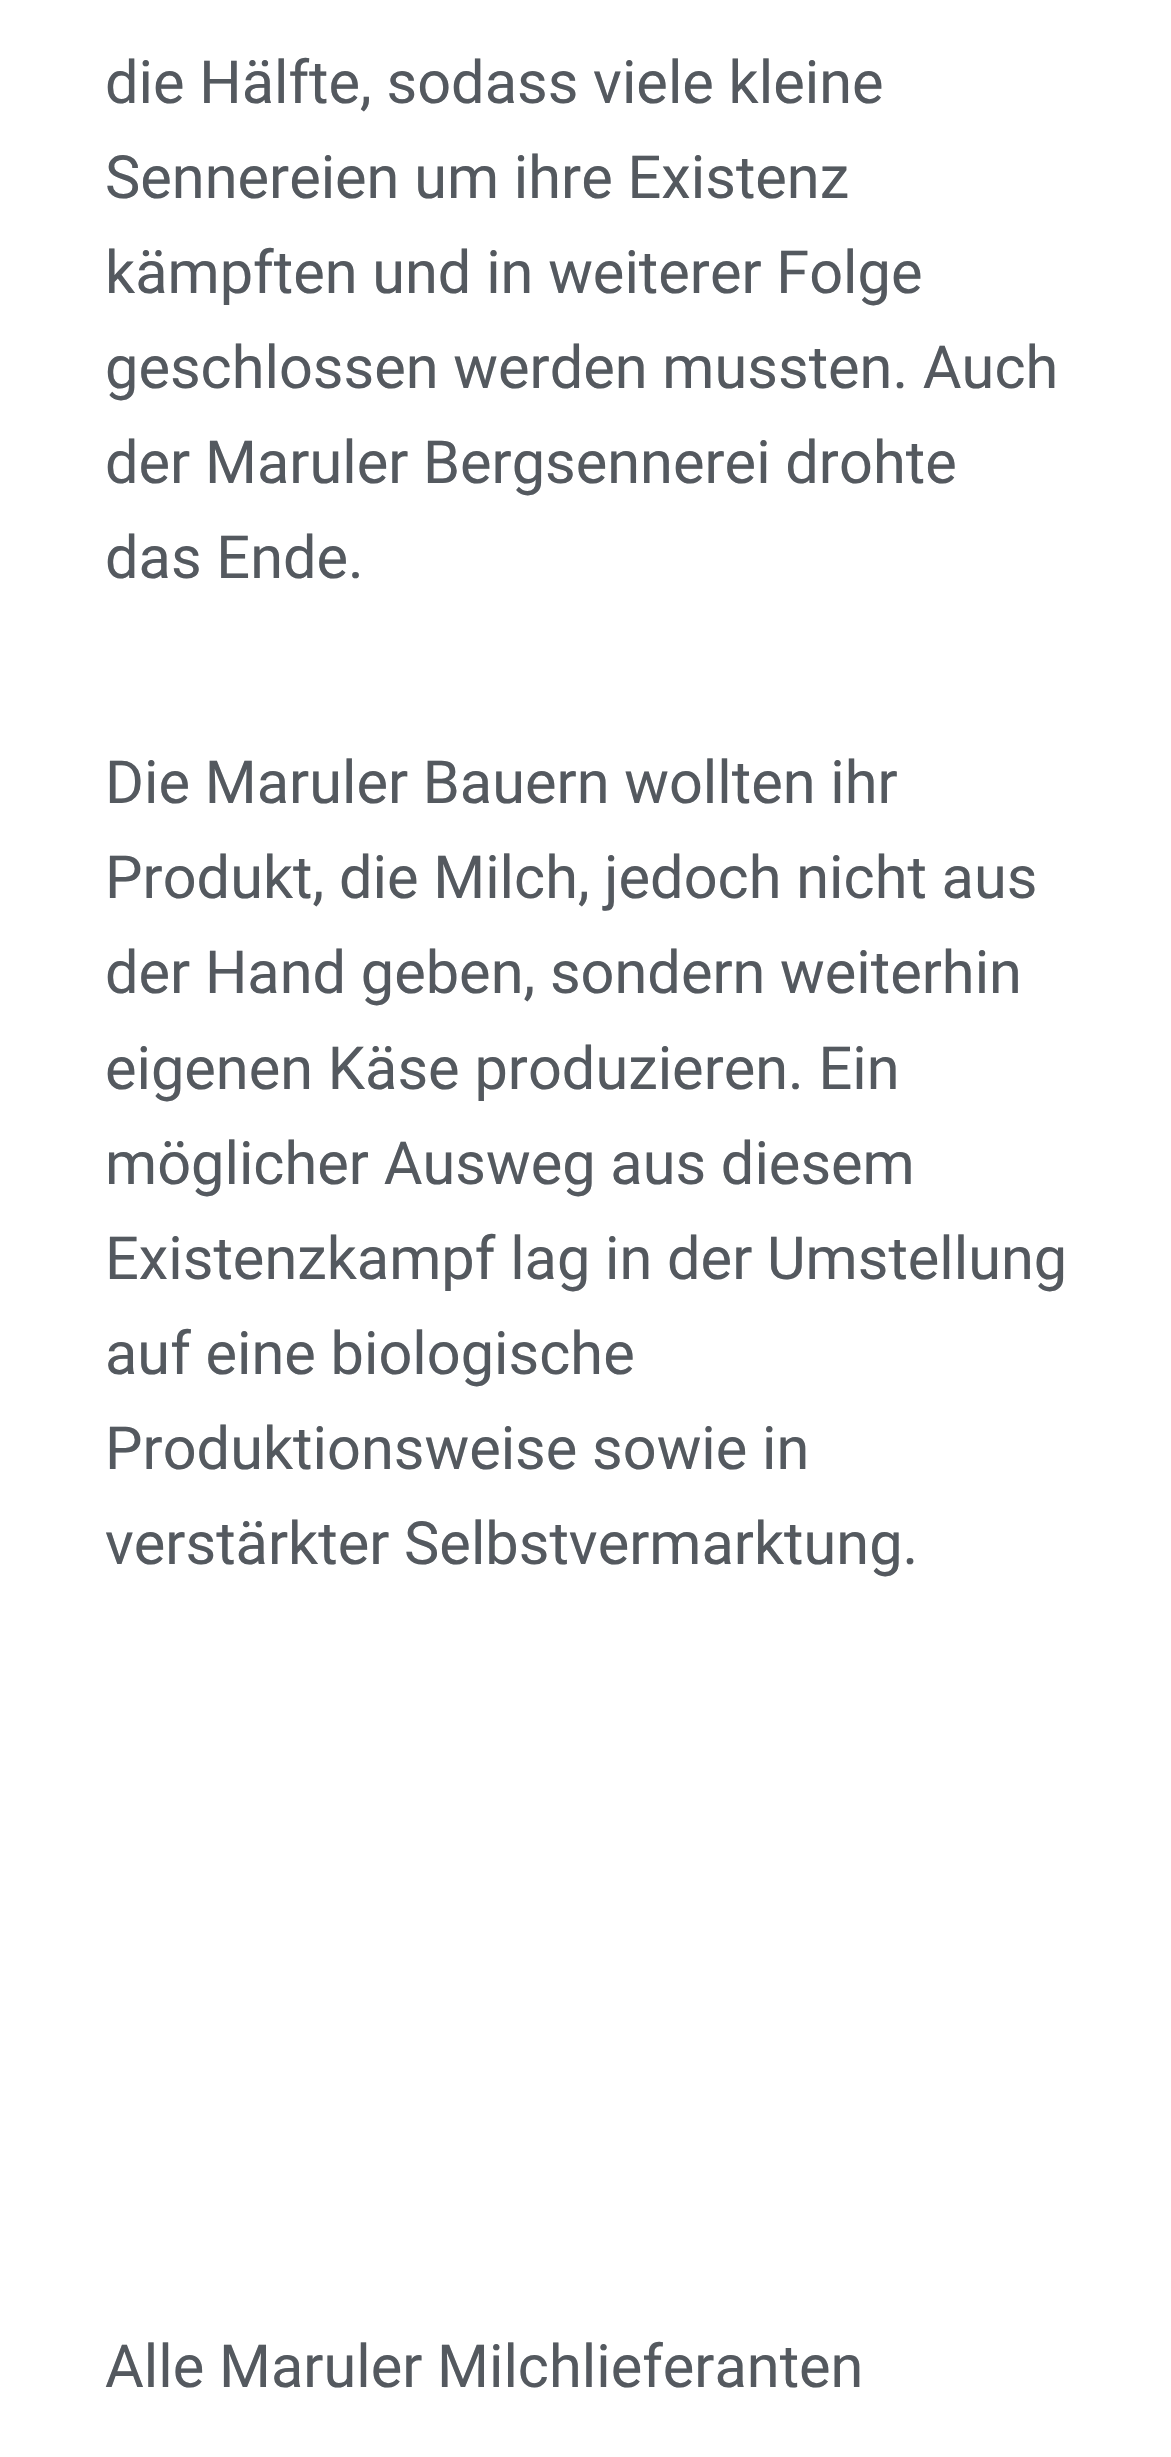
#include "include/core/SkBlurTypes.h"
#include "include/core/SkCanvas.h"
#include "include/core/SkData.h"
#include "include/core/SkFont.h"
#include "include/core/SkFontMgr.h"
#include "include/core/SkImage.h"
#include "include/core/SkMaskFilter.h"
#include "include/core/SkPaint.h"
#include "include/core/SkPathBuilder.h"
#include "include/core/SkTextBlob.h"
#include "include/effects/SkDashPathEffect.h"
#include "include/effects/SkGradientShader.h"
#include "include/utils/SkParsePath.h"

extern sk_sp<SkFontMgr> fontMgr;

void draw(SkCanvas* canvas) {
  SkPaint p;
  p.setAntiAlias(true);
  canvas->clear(SK_ColorWHITE);
  SkFont font1(fontMgr->matchFamilyStyle("Roboto", SkFontStyle::Normal()), 59.5f);
  font1.setSubpixel(true);
  p.setColor(SkColorSetRGB(84, 89, 95));
  canvas->drawString("die Hälfte, sodass viele kleine", 105, 103, font1, p);
  canvas->drawString("Sennereien um ihre Existenz", 105, 198, font1, p);
  canvas->drawString("kämpften und in weiterer Folge", 105, 293, font1, p);
  canvas->drawString("geschlossen werden mussten. Auch", 105, 388, font1, p);
  canvas->drawString("der Maruler Bergsennerei drohte", 105, 483, font1, p);
  canvas->drawString("das Ende.", 105, 578, font1, p);
  canvas->drawString("Die Maruler Bauern wollten ihr", 105, 803, font1, p);
  canvas->drawString("Produkt, die Milch, jedoch nicht aus", 105, 898, font1, p);
  canvas->drawString("der Hand geben, sondern weiterhin", 105, 993, font1, p);
  canvas->drawString("eigenen Käse produzieren. Ein", 105, 1089, font1, p);
  canvas->drawString("möglicher Ausweg aus diesem", 105, 1184, font1, p);
  canvas->drawString("Existenzkampf lag in der Umstellung", 105, 1279, font1, p);
  canvas->drawString("auf eine biologische", 105, 1374, font1, p);
  canvas->drawString("Produktionsweise sowie in", 105, 1469, font1, p);
  canvas->drawString("verstärkter Selbstvermarktung.", 105, 1564, font1, p);
  canvas->drawString("Alle Maruler Milchlieferanten", 105, 2387, font1, p);
}
